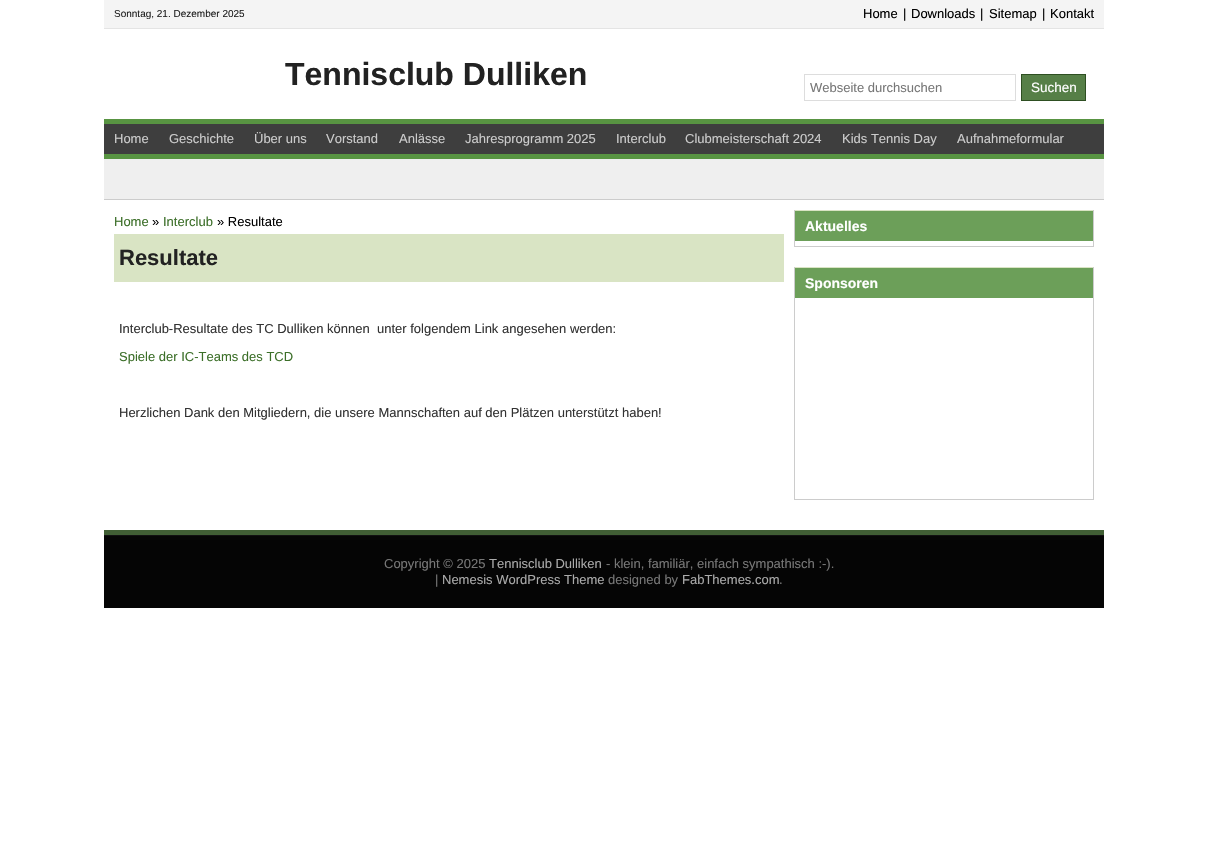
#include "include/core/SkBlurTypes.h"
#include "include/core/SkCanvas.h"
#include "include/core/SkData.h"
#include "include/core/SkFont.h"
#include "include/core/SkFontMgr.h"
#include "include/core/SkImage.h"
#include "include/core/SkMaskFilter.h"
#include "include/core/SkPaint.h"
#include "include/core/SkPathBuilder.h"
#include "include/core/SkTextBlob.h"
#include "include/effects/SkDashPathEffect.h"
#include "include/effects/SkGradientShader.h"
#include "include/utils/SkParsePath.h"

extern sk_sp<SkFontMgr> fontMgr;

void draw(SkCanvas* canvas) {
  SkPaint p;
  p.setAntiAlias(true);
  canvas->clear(SK_ColorWHITE);
  p.setColor(SkColorSetRGB(244, 244, 244));
  canvas->drawRect(SkRect::MakeLTRB(104, 0, 1104, 28), p);
  p.setColor(SkColorSetRGB(228, 228, 228));
  canvas->drawRect(SkRect::MakeLTRB(104, 28, 1104, 29), p);
  p.setStyle(SkPaint::kStroke_Style);
  p.setStrokeWidth(1);
  p.setColor(SkColorSetRGB(221, 221, 221));
  canvas->drawRect(SkRect::MakeLTRB(804.5f, 74.5f, 1015.5f, 100.5f), p);
  p.setStyle(SkPaint::kFill_Style);
  p.setColor(SkColorSetRGB(86, 127, 71));
  canvas->drawRect(SkRect::MakeLTRB(1021.5f, 74.5f, 1085.5f, 100.5f), p);
  p.setStyle(SkPaint::kStroke_Style);
  p.setColor(SkColorSetRGB(46, 79, 34));
  canvas->drawRect(SkRect::MakeLTRB(1021.5f, 74.5f, 1085.5f, 100.5f), p);
  p.setStyle(SkPaint::kFill_Style);
  p.setColor(SkColorSetRGB(62, 62, 62));
  canvas->drawRect(SkRect::MakeLTRB(104, 124, 1104, 154), p);
  p.setColor(SkColorSetRGB(88, 148, 66));
  canvas->drawRect(SkRect::MakeLTRB(104, 119, 1104, 124), p);
  canvas->drawRect(SkRect::MakeLTRB(104, 154, 1104, 159), p);
  p.setColor(SkColorSetRGB(239, 239, 239));
  canvas->drawRect(SkRect::MakeLTRB(104, 159, 1104, 199), p);
  p.setColor(SkColorSetRGB(204, 204, 204));
  canvas->drawRect(SkRect::MakeLTRB(104, 199, 1104, 200), p);
  p.setColor(SkColorSetRGB(217, 228, 196));
  canvas->drawRect(SkRect::MakeLTRB(114, 234, 784, 282), p);
  p.setColor(SkColorSetRGB(204, 204, 204));
  canvas->drawRect(SkRect::MakeLTRB(1093, 210, 1094, 247), p);
  canvas->drawRect(SkRect::MakeLTRB(794, 246, 1094, 247), p);
  canvas->drawRect(SkRect::MakeLTRB(794, 210, 795, 247), p);
  p.setColor(SkColorSetRGB(108, 159, 89));
  canvas->drawRect(SkRect::MakeLTRB(795, 211, 1093, 241), p);
  p.setColor(SkColorSetRGB(217, 228, 196));
  canvas->drawRect(SkRect::MakeLTRB(795, 210, 1093, 211), p);
  p.setColor(SkColorSetRGB(204, 204, 204));
  canvas->drawRect(SkRect::MakeLTRB(1093, 267, 1094, 500), p);
  canvas->drawRect(SkRect::MakeLTRB(794, 499, 1094, 500), p);
  canvas->drawRect(SkRect::MakeLTRB(794, 267, 795, 500), p);
  p.setColor(SkColorSetRGB(108, 159, 89));
  canvas->drawRect(SkRect::MakeLTRB(795, 268, 1093, 298), p);
  p.setColor(SkColorSetRGB(217, 228, 196));
  canvas->drawRect(SkRect::MakeLTRB(795, 267, 1093, 268), p);
  p.setColor(SkColorSetRGB(65, 95, 53));
  canvas->drawRect(SkRect::MakeLTRB(104, 530, 1104, 535), p);
  p.setColor(SkColorSetRGB(5, 5, 5));
  canvas->drawRect(SkRect::MakeLTRB(104, 536, 1104, 608), p);
  p.setColor(SkColorSetRGB(17, 17, 17));
  canvas->drawRect(SkRect::MakeLTRB(104, 535, 1104, 536), p);
  SkFont font1(fontMgr->matchFamilyStyle("Liberation Sans", SkFontStyle::Normal()), 10);
  font1.setSubpixel(true);
  p.setColor(SkColorSetRGB(34, 34, 34));
  canvas->drawString("Sonntag, 21. Dezember 2025", 114, 17, font1, p);
  SkFont font2(fontMgr->matchFamilyStyle("Liberation Sans", SkFontStyle::Normal()), 13);
  font2.setSubpixel(true);
  p.setColor(SK_ColorBLACK);
  canvas->drawString("Home", 863, 18, font2, p);
  canvas->drawString("|", 903, 18, font2, p);
  canvas->drawString("Downloads", 911, 18, font2, p);
  canvas->drawString("|", 980, 18, font2, p);
  canvas->drawString("Sitemap", 989, 18, font2, p);
  canvas->drawString("|", 1042, 18, font2, p);
  canvas->drawString("Kontakt", 1050, 18, font2, p);
  SkFont font3(fontMgr->matchFamilyStyle("Liberation Sans", SkFontStyle::Bold()), 32);
  font3.setSubpixel(true);
  p.setColor(SkColorSetRGB(34, 34, 34));
  canvas->drawString("Tennisclub Dulliken", 285, 85, font3, p);
  p.setColor(SkColorSetRGB(119, 119, 119));
  canvas->drawString("Webseite durchsuchen", 810, 92, font2, p);
  SkFont font4(fontMgr->matchFamilyStyle("Liberation Sans", SkFontStyle::Normal()), 13.5f);
  font4.setSubpixel(true);
  p.setColor(SK_ColorWHITE);
  canvas->drawString("Suchen", 1031, 92, font4, p);
  p.setColor(SkColorSetRGB(204, 204, 204));
  canvas->drawString("Home", 114, 143, font2, p);
  canvas->drawString("Geschichte", 169, 143, font2, p);
  canvas->drawString("Über uns", 254, 143, font2, p);
  canvas->drawString("Vorstand", 326, 143, font2, p);
  canvas->drawString("Anlässe", 399, 143, font2, p);
  canvas->drawString("Jahresprogramm 2025", 465, 143, font2, p);
  canvas->drawString("Interclub", 616, 143, font2, p);
  canvas->drawString("Clubmeisterschaft 2024", 685, 143, font2, p);
  canvas->drawString("Kids Tennis Day", 842, 143, font2, p);
  canvas->drawString("Aufnahmeformular", 957, 143, font2, p);
  p.setColor(SkColorSetRGB(60, 111, 41));
  canvas->drawString("Home", 114, 226, font2, p);
  p.setColor(SK_ColorBLACK);
  canvas->drawString("»", 152, 226, font2, p);
  p.setColor(SkColorSetRGB(60, 111, 41));
  canvas->drawString("Interclub", 163, 226, font2, p);
  p.setColor(SK_ColorBLACK);
  canvas->drawString("» Resultate", 217, 226, font2, p);
  SkFont font5(fontMgr->matchFamilyStyle("Liberation Sans", SkFontStyle::Bold()), 22);
  font5.setSubpixel(true);
  p.setColor(SkColorSetRGB(34, 34, 34));
  canvas->drawString("Resultate", 119, 265, font5, p);
  p.setColor(SkColorSetRGB(51, 51, 51));
  canvas->drawString("Interclub-Resultate des TC Dulliken können  unter folgendem Link angesehen werden:", 119, 333, font2, p);
  p.setColor(SkColorSetRGB(60, 111, 41));
  canvas->drawString("Spiele der IC-Teams des TCD", 119, 361, font2, p);
  p.setColor(SkColorSetRGB(51, 51, 51));
  canvas->drawString("Herzlichen Dank den Mitgliedern, die unsere Mannschaften auf den Plätzen unterstützt haben!", 119, 417, font2, p);
  SkFont font6(fontMgr->matchFamilyStyle("Liberation Sans", SkFontStyle::Bold()), 14);
  font6.setSubpixel(true);
  p.setColor(SK_ColorWHITE);
  canvas->drawString("Aktuelles", 805, 231, font6, p);
  canvas->drawString("Sponsoren", 805, 288, font6, p);
  p.setColor(SkColorSetRGB(119, 119, 119));
  canvas->drawString("Copyright © 2025", 384, 568, font2, p);
  p.setColor(SkColorSetRGB(170, 170, 170));
  canvas->drawString("Tennisclub Dulliken", 489, 568, font2, p);
  p.setColor(SkColorSetRGB(119, 119, 119));
  canvas->drawString("- klein, familiär, einfach sympathisch :-).", 606, 568, font2, p);
  canvas->drawString("|", 435, 584, font2, p);
  p.setColor(SkColorSetRGB(170, 170, 170));
  canvas->drawString("Nemesis WordPress Theme", 442, 584, font2, p);
  p.setColor(SkColorSetRGB(119, 119, 119));
  canvas->drawString("designed by", 608, 584, font2, p);
  p.setColor(SkColorSetRGB(170, 170, 170));
  canvas->drawString("FabThemes.com", 682, 584, font2, p);
  p.setColor(SkColorSetRGB(119, 119, 119));
  canvas->drawString(".", 779, 584, font2, p);
}
